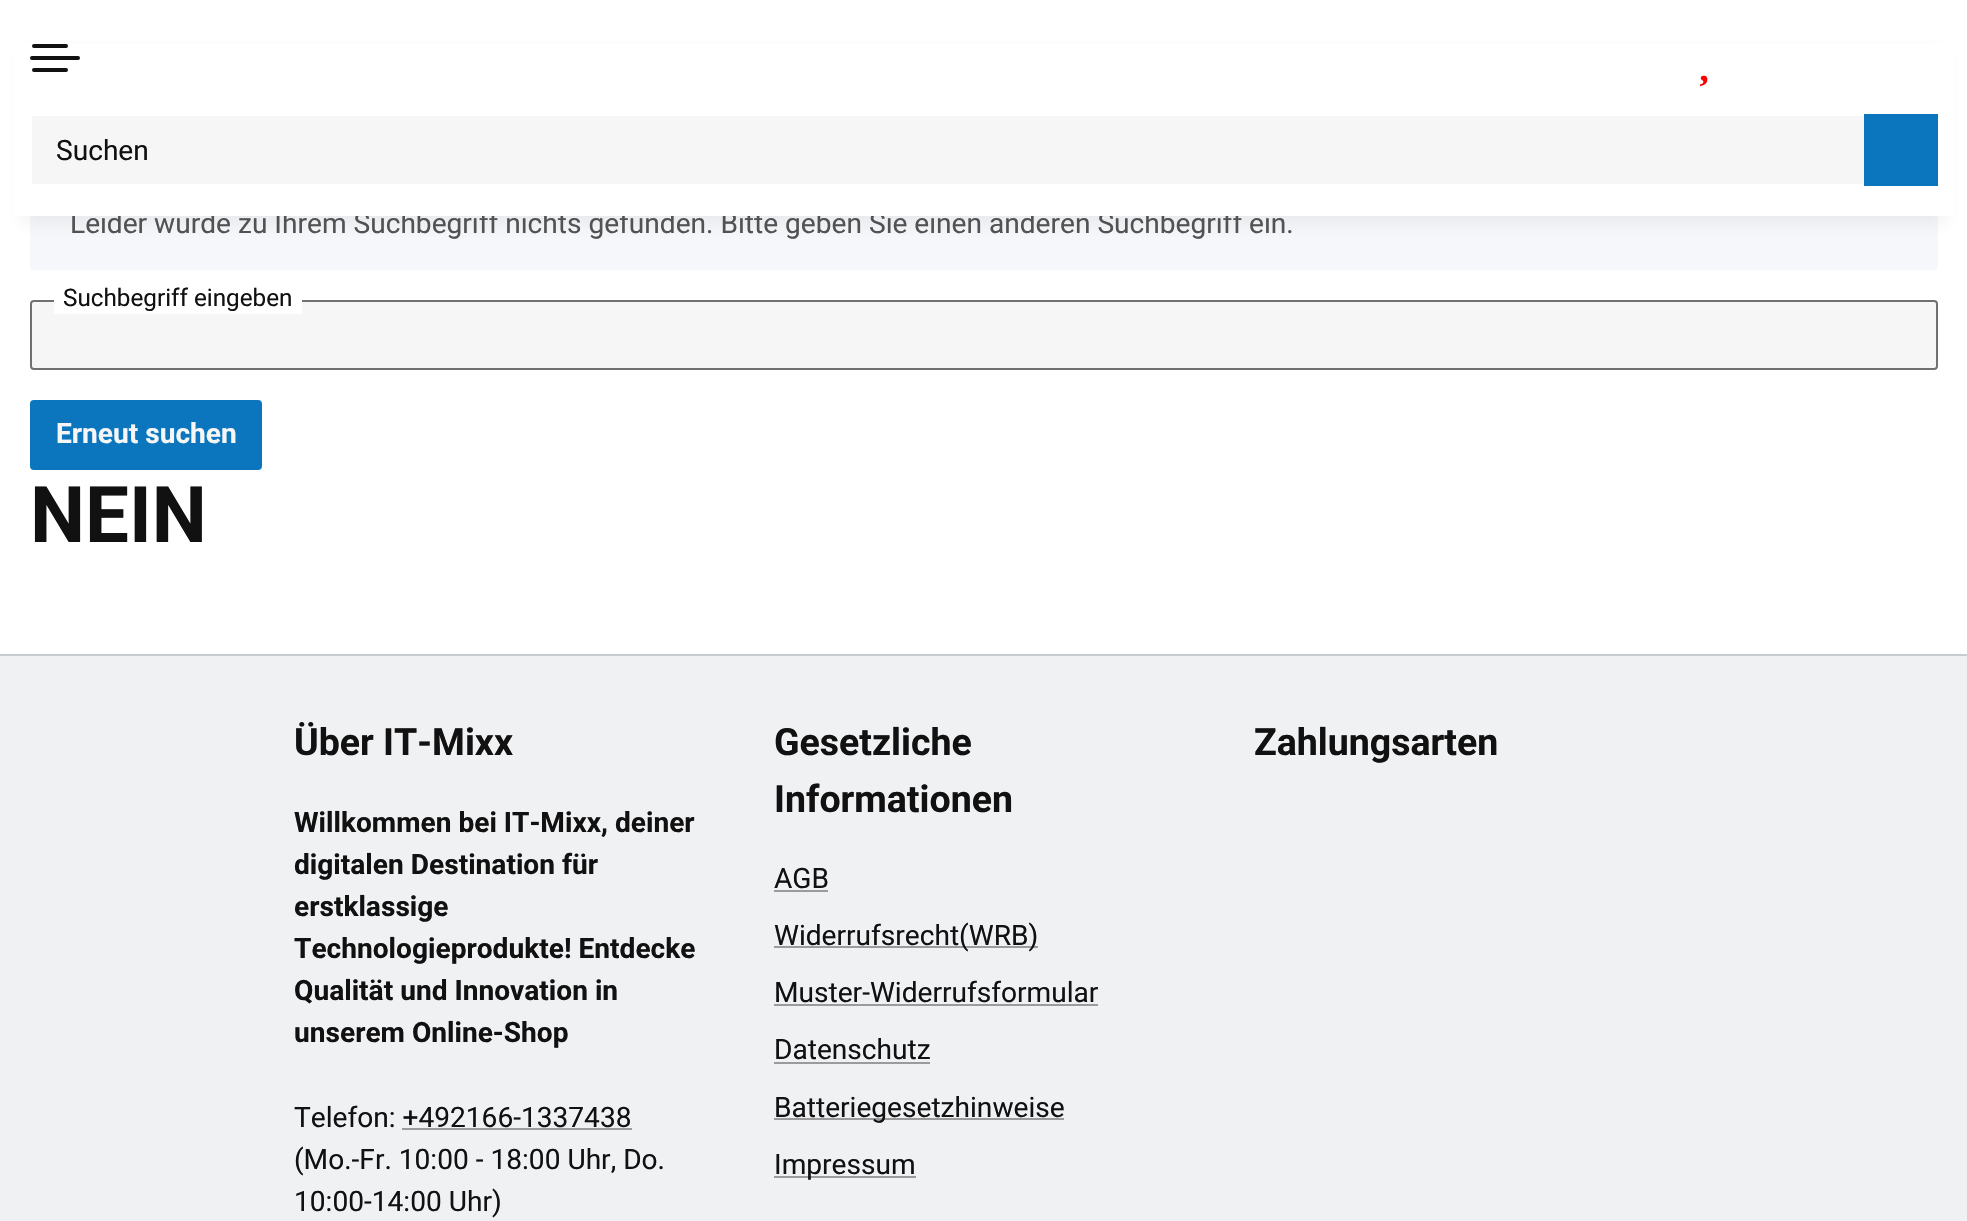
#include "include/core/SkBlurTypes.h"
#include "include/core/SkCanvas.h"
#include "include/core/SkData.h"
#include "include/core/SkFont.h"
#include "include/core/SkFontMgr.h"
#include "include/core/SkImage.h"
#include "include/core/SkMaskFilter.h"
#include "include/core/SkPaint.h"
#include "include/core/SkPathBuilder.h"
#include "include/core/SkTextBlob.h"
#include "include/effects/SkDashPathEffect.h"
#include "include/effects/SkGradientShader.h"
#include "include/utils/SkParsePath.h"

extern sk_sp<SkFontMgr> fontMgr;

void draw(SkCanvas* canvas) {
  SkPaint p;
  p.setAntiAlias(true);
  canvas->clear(SK_ColorWHITE);
  p.setColor(SkColorSetRGB(245, 247, 250));
  canvas->drawRoundRect(SkRect::MakeLTRB(30, 178, 1938, 270), 4, 4, p);
  p.setColor(SkColorSetARGB(15, 17, 17, 17));
  p.setMaskFilter(SkMaskFilter::MakeBlur(kNormal_SkBlurStyle, 8.5f));
  canvas->drawRect(SkRect::MakeLTRB(22, 52, 1946, 224), p);
  p.setMaskFilter(nullptr);
  p.setColor(SkColorSetRGB(246, 246, 246));
  canvas->drawRoundRect(SkRect::MakeLTRB(31, 301, 1937, 369), 3, 3, p);
  p.setStyle(SkPaint::kStroke_Style);
  p.setStrokeWidth(2);
  p.setColor(SkColorSetRGB(112, 112, 112));
  canvas->drawRoundRect(SkRect::MakeLTRB(31, 301, 1937, 369), 3, 3, p);
  p.setStyle(SkPaint::kFill_Style);
  p.setColor(SK_ColorWHITE);
  canvas->drawRect(SkRect::MakeLTRB(54, 300, 302, 314), p);
  p.setColor(SkColorSetRGB(11, 118, 190));
  canvas->drawRoundRect(SkRect::MakeLTRB(31, 401, 261, 469), 3, 3, p);
  p.setStyle(SkPaint::kStroke_Style);
  canvas->drawRoundRect(SkRect::MakeLTRB(31, 401, 261, 469), 3, 3, p);
  p.setStyle(SkPaint::kFill_Style);
  p.setColor(SkColorSetRGB(239, 241, 243));
  canvas->drawRect(SkRect::MakeLTRB(0, 656, 1967, 1221), p);
  p.setColor(SkColorSetRGB(200, 204, 207));
  canvas->drawRect(SkRect::MakeLTRB(0, 654, 1967, 656), p);
  p.setColor(SkColorSetRGB(155, 155, 155));
  canvas->drawRect(SkRect::MakeLTRB(402, 1128, 632, 1130), p);
  canvas->drawRect(SkRect::MakeLTRB(774, 890, 828, 892), p);
  canvas->drawRect(SkRect::MakeLTRB(774, 946, 1038, 948), p);
  canvas->drawRect(SkRect::MakeLTRB(774, 1004, 1098, 1006), p);
  canvas->drawRect(SkRect::MakeLTRB(774, 1062, 930, 1064), p);
  canvas->drawRect(SkRect::MakeLTRB(774, 1118, 1064, 1120), p);
  canvas->drawRect(SkRect::MakeLTRB(774, 1176, 916, 1178), p);
  SkFont font1(fontMgr->matchFamilyStyle("Roboto", SkFontStyle::Normal()), 28.1f);
  font1.setSubpixel(true);
  p.setColor(SkColorSetRGB(82, 82, 82));
  canvas->drawString("Leider wurde zu Ihrem Suchbegriff nichts gefunden. Bitte geben Sie einen anderen Suchbegriff ein.", 70, 233, font1, p);
  p.setColor(SK_ColorWHITE);
  canvas->drawRect(SkRect::MakeLTRB(14, 44, 1954, 216), p);
  p.setColor(SkColorSetRGB(11, 118, 190));
  canvas->drawRect(SkRect::MakeLTRB(1864, 114, 1938, 186), p);
  p.setColor(SkColorSetRGB(246, 246, 246));
  canvas->drawPath(SkPathBuilder().moveTo(34, 116).lineTo(1864, 116).lineTo(1864, 184).lineTo(34, 184).cubicTo(33, 184, 32, 183, 32, 182).lineTo(32, 118).cubicTo(32, 117, 33, 116, 34, 116).close().detach(), p);
  p.setColor(SkColorSetRGB(17, 17, 17));
  canvas->drawString("Suchen", 56, 160, font1, p);
  canvas->drawImageRect(SkImages::DeferredFromEncodedData(SkData::MakeFromFileName("images/1.png")), SkRect::MakeLTRB(1699, 75, 1708, 87), SkSamplingOptions());
  canvas->drawRoundRect(SkRect::MakeLTRB(32, 68, 68, 72), 2, 2, p);
  canvas->drawRoundRect(SkRect::MakeLTRB(32, 44, 68, 48), 2, 2, p);
  canvas->drawRoundRect(SkRect::MakeLTRB(30, 56, 80, 60), 2, 2, p);
  SkFont font2(fontMgr->matchFamilyStyle("Roboto", SkFontStyle::Normal()), 24.25f);
  font2.setSubpixel(true);
  canvas->drawString("Suchbegriff eingeben", 63, 306, font2, p);
  SkFont font3(fontMgr->matchFamilyStyle("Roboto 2", SkFontStyle::Bold()), 28.1f);
  font3.setSubpixel(true);
  p.setColor(SkColorSetRGB(246, 246, 246));
  canvas->drawString("Erneut suchen", 56, 443, font3, p);
  SkFont font4(fontMgr->matchFamilyStyle("Roboto", SkFontStyle::Bold()), 78);
  font4.setSubpixel(true);
  p.setColor(SkColorSetRGB(17, 17, 17));
  canvas->drawString("NEIN", 30, 542, font4, p);
  SkFont font5(fontMgr->matchFamilyStyle("Roboto", SkFontStyle::Bold()), 37.5f);
  font5.setSubpixel(true);
  canvas->drawString("Über IT-Mixx", 294, 755, font5, p);
  canvas->drawString("Willkommen bei IT-Mixx, deiner", 294, 832, font3, p);
  canvas->drawString("digitalen Destination für", 294, 874, font3, p);
  canvas->drawString("erstklassige", 294, 916, font3, p);
  canvas->drawString("Technologieprodukte! Entdecke", 294, 958, font3, p);
  canvas->drawString("Qualität und Innovation in", 294, 1000, font3, p);
  canvas->drawString("unserem Online-Shop", 294, 1042, font3, p);
  canvas->drawString("Telefon: +492166-1337438", 294, 1127, font1, p);
  canvas->drawString("(Mo.-Fr. 10:00 - 18:00 Uhr, Do.", 294, 1169, font1, p);
  canvas->drawString("10:00-14:00 Uhr)", 294, 1211, font1, p);
  canvas->drawString("Gesetzliche", 774, 755, font5, p);
  canvas->drawString("Informationen", 774, 812, font5, p);
  canvas->drawString("AGB", 774, 888, font1, p);
  canvas->drawString("Widerrufsrecht(WRB)", 774, 945, font1, p);
  canvas->drawString("Muster-Widerrufsformular", 774, 1002, font1, p);
  canvas->drawString("Datenschutz", 774, 1059, font1, p);
  canvas->drawString("Batteriegesetzhinweise", 774, 1117, font1, p);
  canvas->drawString("Impressum", 774, 1174, font1, p);
  canvas->drawString("Zahlungsarten", 1254, 755, font5, p);
}
